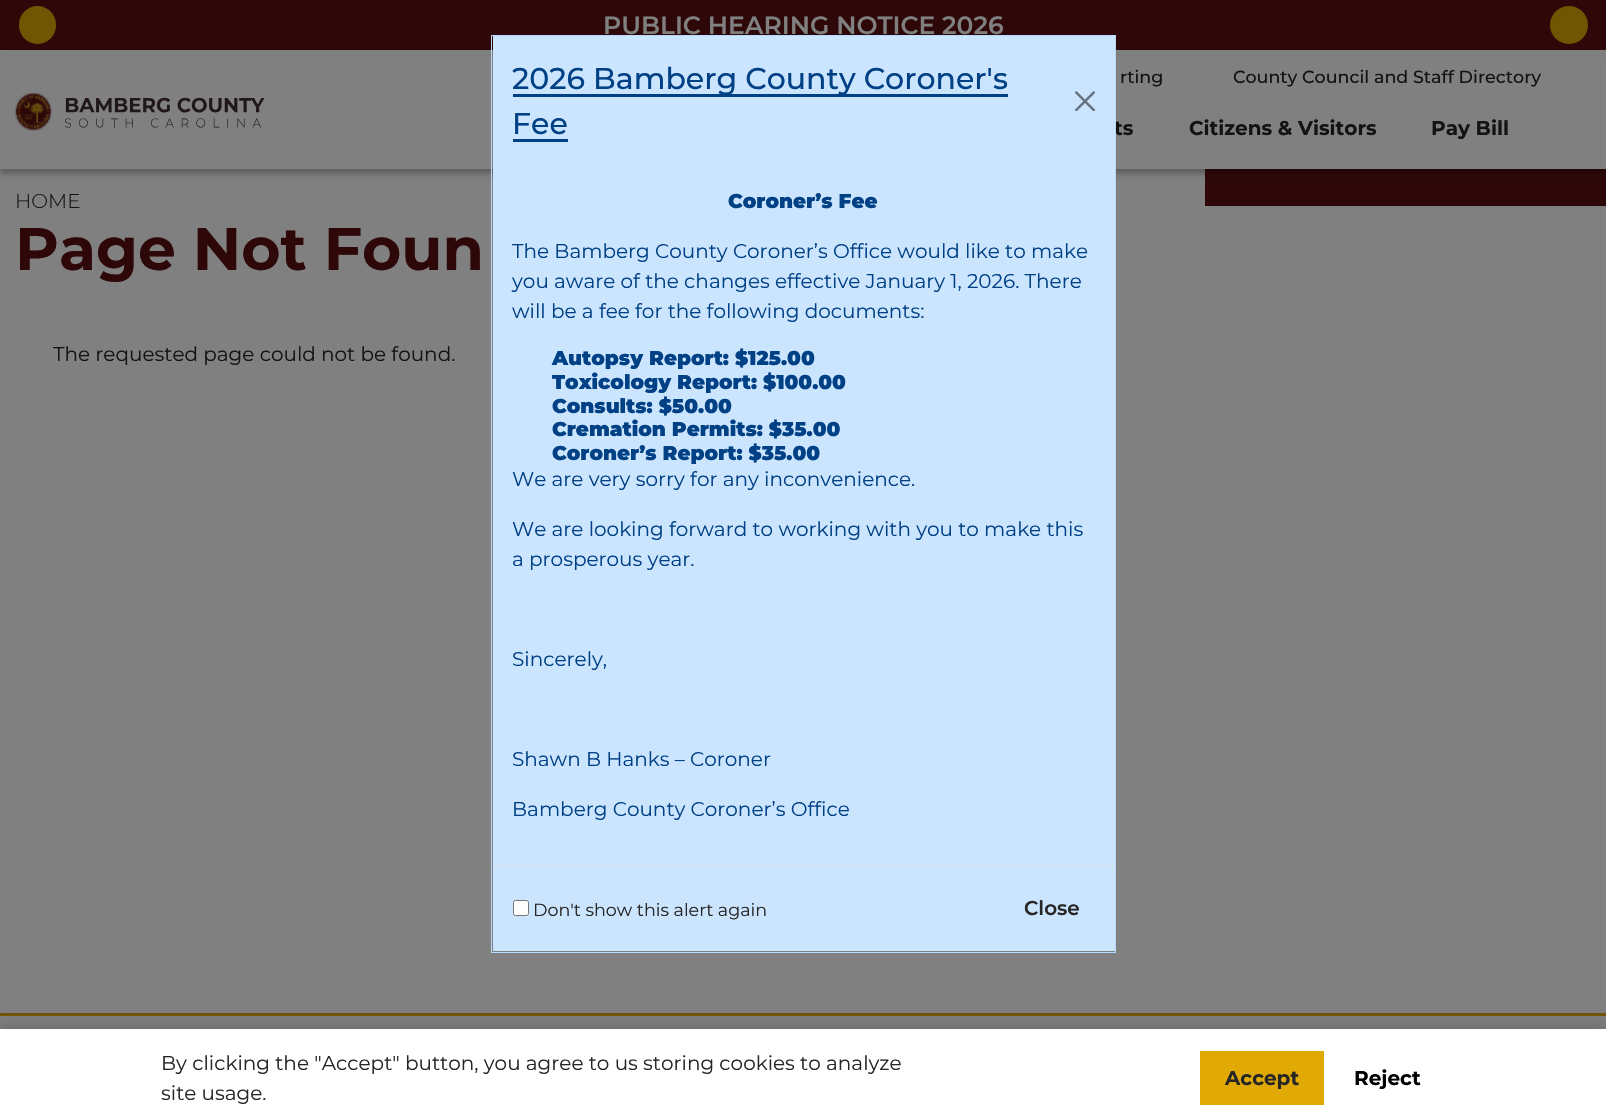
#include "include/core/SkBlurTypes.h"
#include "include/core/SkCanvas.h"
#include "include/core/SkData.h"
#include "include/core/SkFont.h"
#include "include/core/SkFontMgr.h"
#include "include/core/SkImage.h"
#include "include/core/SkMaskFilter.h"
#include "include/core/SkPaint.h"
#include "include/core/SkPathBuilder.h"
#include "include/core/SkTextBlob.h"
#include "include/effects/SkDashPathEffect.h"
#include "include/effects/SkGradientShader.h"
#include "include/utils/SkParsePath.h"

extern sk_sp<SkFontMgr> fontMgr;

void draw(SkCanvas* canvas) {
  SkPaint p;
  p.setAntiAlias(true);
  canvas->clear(SkColorSetRGB(128, 128, 128));
  p.setColor(SkColorSetRGB(46, 8, 9));
  canvas->drawRect(SkRect::MakeLTRB(0, 0, 1606, 50), p);
  p.setColor(SkColorSetRGB(112, 85, 3));
  canvas->drawRoundRect(SkRect::MakeLTRB(19, 6, 56, 44), 18.5f, 18.5f, p);
  canvas->drawCircle(1569, 25, 19, p);
  p.setColor(SkColorSetRGB(46, 8, 9));
  canvas->drawRect(SkRect::MakeLTRB(1205, 169, 1606, 206), p);
  p.setColor(SkColorSetARGB(64, 0, 0, 0));
  p.setMaskFilter(SkMaskFilter::MakeBlur(kNormal_SkBlurStyle, 2.5f));
  canvas->drawRect(SkRect::MakeLTRB(0, 60, 1606, 174), p);
  p.setMaskFilter(nullptr);
  p.setColor(SkColorSetRGB(128, 128, 128));
  canvas->drawRect(SkRect::MakeLTRB(0, 57, 1606, 169), p);
  canvas->drawImageRect(SkImages::DeferredFromEncodedData(SkData::MakeFromFileName("images/1.png")), SkRect::MakeLTRB(15, 93, 265, 131), SkSamplingOptions());
  p.setColor(SkColorSetRGB(112, 85, 3));
  canvas->drawRect(SkRect::MakeLTRB(0, 1013, 1606, 1016), p);
  p.setColor(SkColorSetARGB(33, 0, 0, 0));
  p.setMaskFilter(SkMaskFilter::MakeBlur(kNormal_SkBlurStyle, 5.5f));
  canvas->drawRect(SkRect::MakeLTRB(0, 1023, 1606, 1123), p);
  p.setMaskFilter(nullptr);
  p.setColor(SK_ColorWHITE);
  canvas->drawRect(SkRect::MakeLTRB(0, 1029, 1606, 1108), p);
  p.setColor(SkColorSetRGB(224, 169, 6));
  canvas->drawRect(SkRect::MakeLTRB(1200, 1051, 1324, 1105), p);
  SkFont font1(fontMgr->matchFamilyStyle("Montserrat", SkFontStyle(600, SkFontStyle::kNormal_Width, SkFontStyle::kUpright_Slant)), 25);
  font1.setSubpixel(true);
  p.setColor(SkColorSetRGB(128, 128, 128));
  canvas->drawString("PUBLIC HEARING NOTICE 2026", 603, 34, font1, p);
  SkFont font2(fontMgr->matchFamilyStyle("Montserrat", SkFontStyle(500, SkFontStyle::kNormal_Width, SkFontStyle::kUpright_Slant)), 17.5f);
  font2.setSubpixel(true);
  p.setColor(SkColorSetRGB(19, 19, 19));
  canvas->drawString("rting", 1120, 83, font2, p);
  canvas->drawString("County Council and Staff Directory", 1233, 83, font2, p);
  SkFont font3(fontMgr->matchFamilyStyle("Montserrat", SkFontStyle::Bold()), 20);
  font3.setSubpixel(true);
  canvas->drawString("ts", 1114, 135, font3, p);
  canvas->drawString("Citizens & Visitors", 1189, 135, font3, p);
  canvas->drawString("Pay Bill", 1431, 135, font3, p);
  SkFont font4(fontMgr->matchFamilyStyle("Montserrat", SkFontStyle(300, SkFontStyle::kNormal_Width, SkFontStyle::kUpright_Slant)), 20);
  font4.setSubpixel(true);
  canvas->drawString("HOME", 15, 208, font4, p);
  SkFont font5(fontMgr->matchFamilyStyle("Montserrat", SkFontStyle::Bold()), 60);
  font5.setSubpixel(true);
  p.setColor(SkColorSetRGB(46, 8, 9));
  canvas->drawString("Page Not Foun", 15, 270, font5, p);
  SkFont font6(fontMgr->matchFamilyStyle("Montserrat", SkFontStyle::Normal()), 20);
  font6.setSubpixel(true);
  p.setColor(SkColorSetRGB(19, 19, 19));
  canvas->drawString("The requested page could not be found.", 53, 361, font6, p);
  p.setColor(SkColorSetRGB(204, 229, 255));
  canvas->drawRect(SkRect::MakeLTRB(493, 36, 1115, 951), p);
  p.setStyle(SkPaint::kStroke_Style);
  p.setStrokeWidth(1);
  p.setColor(SkColorSetRGB(184, 218, 255));
  canvas->drawRect(SkRect::MakeLTRB(491.5f, 35.5f, 1115.5f, 952.5f), p);
  p.setStyle(SkPaint::kFill_Style);
  p.setColor(SkColorSetRGB(0, 64, 133));
  canvas->drawRect(SkRect::MakeLTRB(513, 94, 1008, 97), p);
  SkFont font7(fontMgr->matchFamilyStyle("Montserrat", SkFontStyle(500, SkFontStyle::kNormal_Width, SkFontStyle::kUpright_Slant)), 30);
  font7.setSubpixel(true);
  canvas->drawString("2026 Bamberg County Coroner's", 512, 89, font7, p);
  canvas->drawString("Fee", 512, 134, font7, p);
  canvas->drawRect(SkRect::MakeLTRB(513, 139, 568, 142), p);
  canvas->drawImageRect(SkImages::DeferredFromEncodedData(SkData::MakeFromFileName("images/2.png")), SkRect::MakeLTRB(1075, 91, 1095, 111), SkSamplingOptions());
  SkFont font8(fontMgr->matchFamilyStyle("Montserrat", SkFontStyle(900, SkFontStyle::kNormal_Width, SkFontStyle::kUpright_Slant)), 20);
  font8.setSubpixel(true);
  canvas->drawString("Coroner’s Fee", 728, 208, font8, p);
  canvas->drawString("The Bamberg County Coroner’s Office would like to make", 512, 258, font6, p);
  canvas->drawString("you aware of the changes effective January 1, 2026. There", 512, 288, font6, p);
  canvas->drawString("will be a fee for the following documents:", 512, 318, font6, p);
  canvas->drawString("Autopsy Report: $125.00", 552, 365, font8, p);
  canvas->drawString("Toxicology Report: $100.00", 552, 389, font8, p);
  canvas->drawString("Consults: $50.00", 552, 413, font8, p);
  canvas->drawString("Cremation Permits: $35.00", 552, 436, font8, p);
  canvas->drawString("Coroner’s Report: $35.00", 552, 460, font8, p);
  canvas->drawString("We are very sorry for any inconvenience.", 512, 486, font6, p);
  canvas->drawString("We are looking forward to working with you to make this", 512, 536, font6, p);
  canvas->drawString("a prosperous year.", 512, 566, font6, p);
  canvas->drawString("Sincerely,", 512, 666, font6, p);
  canvas->drawString("Shawn B Hanks – Coroner", 512, 766, font6, p);
  canvas->drawString("Bamberg County Coroner’s Office", 512, 816, font6, p);
  p.setColor(SkColorSetRGB(222, 226, 230));
  canvas->drawRect(SkRect::MakeLTRB(493, 865, 1115, 866), p);
  p.setColor(SK_ColorWHITE);
  canvas->drawRoundRect(SkRect::MakeLTRB(513.5f, 900.5f, 528.5f, 915.5f), 2, 2, p);
  p.setStyle(SkPaint::kStroke_Style);
  p.setColor(SkColorSetRGB(118, 118, 118));
  canvas->drawRoundRect(SkRect::MakeLTRB(513.5f, 900.5f, 528.5f, 915.5f), 2, 2, p);
  SkFont font9(fontMgr->matchFamilyStyle("Montserrat", SkFontStyle::Normal()), 17.5f);
  font9.setSubpixel(true);
  p.setStyle(SkPaint::kFill_Style);
  p.setColor(SkColorSetRGB(38, 38, 38));
  canvas->drawString("Don't show this alert again", 533, 916, font9, p);
  SkFont font10(fontMgr->matchFamilyStyle("Montserrat", SkFontStyle(600, SkFontStyle::kNormal_Width, SkFontStyle::kUpright_Slant)), 20);
  font10.setSubpixel(true);
  canvas->drawString("Close", 1024, 915, font10, p);
  canvas->drawString("By clicking the \"Accept\" button, you agree to us storing cookies to analyze", 161, 1070, font6, p);
  canvas->drawString("site usage.", 161, 1100, font6, p);
  canvas->drawString("Accept", 1225, 1085, font3, p);
  p.setColor(SK_ColorBLACK);
  canvas->drawString("Reject", 1354, 1085, font3, p);
}
